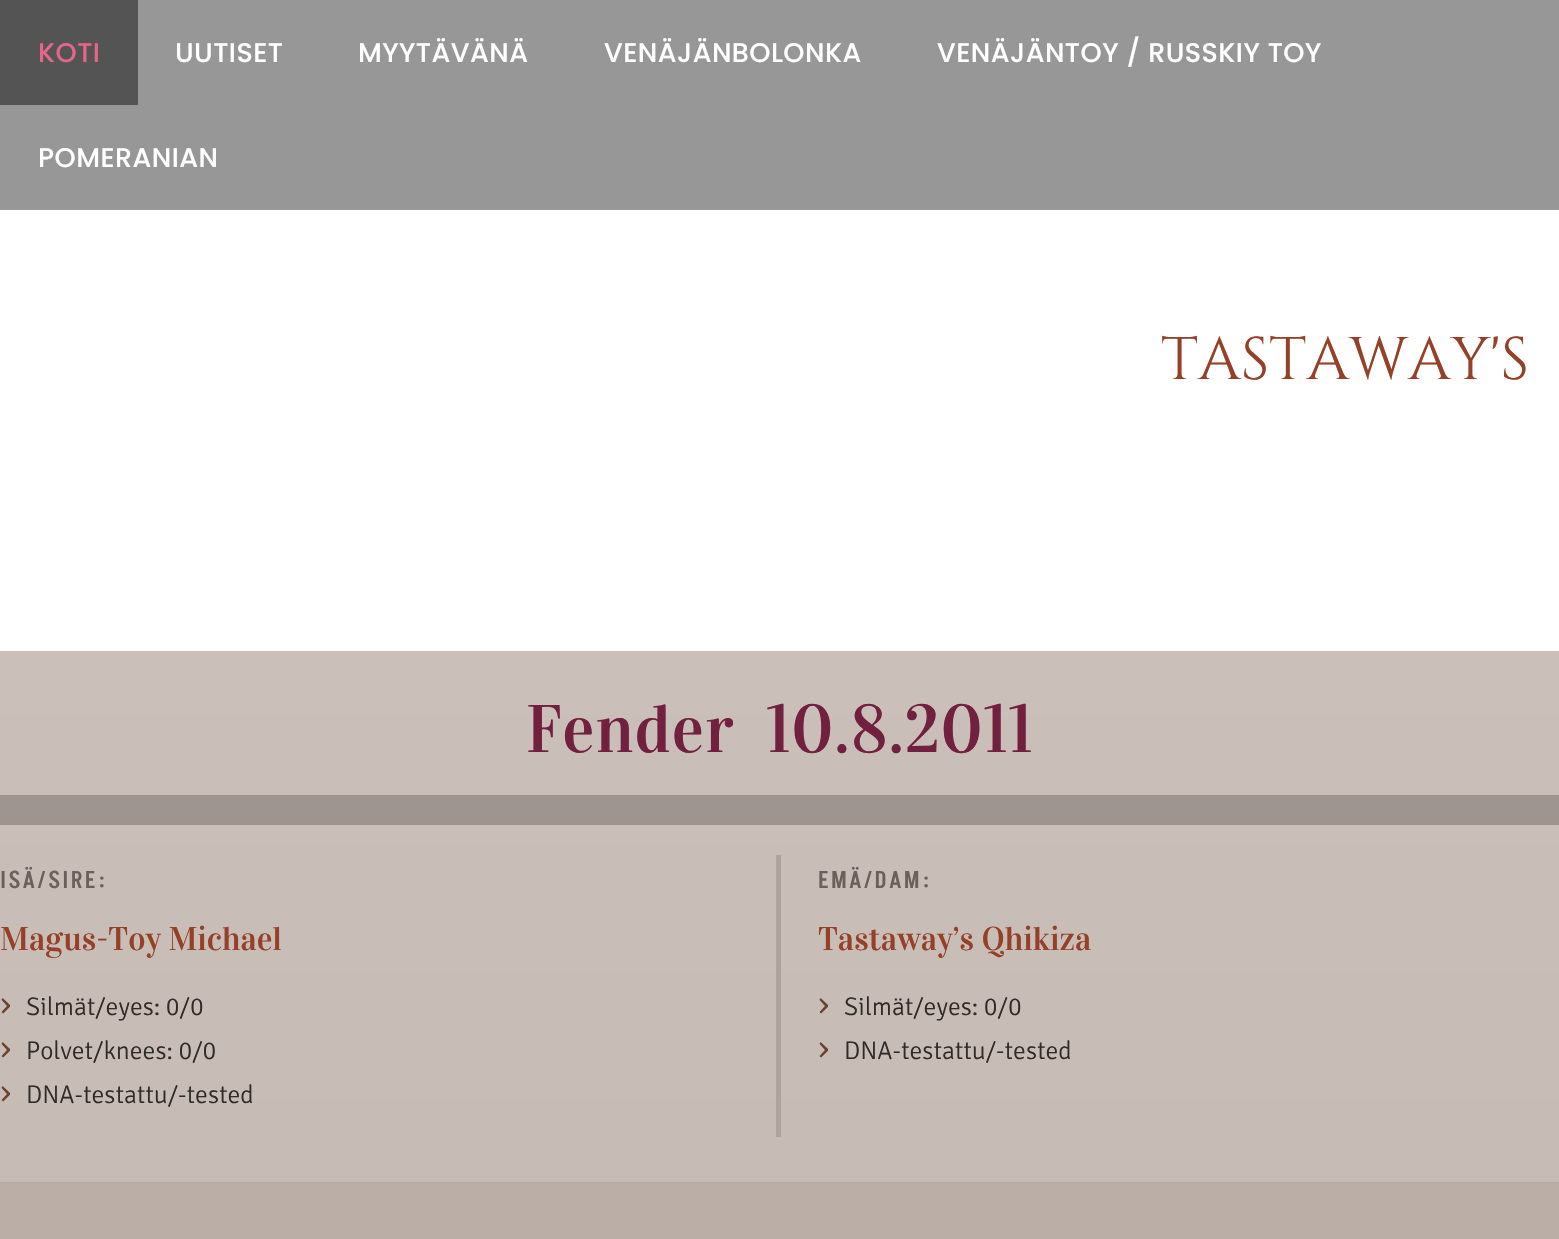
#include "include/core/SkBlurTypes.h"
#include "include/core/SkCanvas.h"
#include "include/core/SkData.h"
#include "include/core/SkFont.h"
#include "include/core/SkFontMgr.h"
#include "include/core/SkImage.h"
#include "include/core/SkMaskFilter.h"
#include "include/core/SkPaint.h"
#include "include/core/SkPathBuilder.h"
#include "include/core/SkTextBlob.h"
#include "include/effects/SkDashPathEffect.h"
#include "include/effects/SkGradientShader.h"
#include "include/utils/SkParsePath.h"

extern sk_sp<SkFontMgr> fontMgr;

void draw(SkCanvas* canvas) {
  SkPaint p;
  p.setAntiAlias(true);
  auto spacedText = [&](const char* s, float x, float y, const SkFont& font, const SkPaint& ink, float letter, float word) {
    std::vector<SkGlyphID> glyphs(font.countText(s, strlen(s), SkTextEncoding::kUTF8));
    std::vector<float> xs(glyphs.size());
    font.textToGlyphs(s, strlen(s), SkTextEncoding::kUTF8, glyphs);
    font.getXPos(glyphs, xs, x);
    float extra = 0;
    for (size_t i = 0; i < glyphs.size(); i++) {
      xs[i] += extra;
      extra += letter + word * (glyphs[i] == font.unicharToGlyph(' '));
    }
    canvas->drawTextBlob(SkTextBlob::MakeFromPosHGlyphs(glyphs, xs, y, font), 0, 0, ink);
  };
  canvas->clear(SK_ColorWHITE);
  p.setColor(SkColorSetRGB(151, 151, 151));
  canvas->drawRect(SkRect::MakeLTRB(0, 0, 1559, 210), p);
  p.setColor(SkColorSetRGB(84, 84, 84));
  canvas->drawRect(SkRect::MakeLTRB(0, 0, 138, 105), p);
  {
    const SkColor colors[] = {SkColorSetRGB(203, 192, 185), SkColorSetRGB(190, 179, 172)};
    const float stops[] = {0, 1};
    const SkPoint ends[] = {{780, 651}, {780, 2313}};
    p.setShader(SkGradientShader::MakeLinear(ends, colors, stops, 2, SkTileMode::kClamp));
    p.setAlpha(255);
  }
  canvas->drawRect(SkRect::MakeLTRB(0, 651, 1559, 1182), p);
  p.setShader(nullptr);
  p.setColor(SkColorSetRGB(158, 149, 144));
  canvas->drawRect(SkRect::MakeLTRB(0, 795, 1559, 825), p);
  p.setColor(SkColorSetRGB(174, 164, 158));
  canvas->drawRect(SkRect::MakeLTRB(776, 855, 781, 1137), p);
  p.setColor(SkColorSetRGB(187, 174, 167));
  canvas->drawRect(SkRect::MakeLTRB(0, 1182, 1559, 1239), p);
  SkFont font1(fontMgr->matchFamilyStyle("Poppins", SkFontStyle(500, SkFontStyle::kNormal_Width, SkFontStyle::kUpright_Slant)), 27);
  font1.setSubpixel(true);
  p.setColor(SkColorSetRGB(232, 101, 137));
  spacedText("KOTI", 38, 62, font1, p, 0.45f, 0);
  p.setColor(SK_ColorWHITE);
  spacedText("UUTISET", 175, 62, font1, p, 0.45f, 0);
  spacedText("MYYTÄVÄNÄ", 358, 62, font1, p, 0.45f, 0);
  spacedText("VENÄJÄNBOLONKA", 604, 62, font1, p, 0.45f, 0);
  spacedText("VENÄJÄNTOY / RUSSKIY TOY", 937, 62, font1, p, 0.45f, 0);
  spacedText("POMERANIAN", 38, 167, font1, p, 0.45f, 0);
  SkFont font2(fontMgr->matchFamilyStyle("Cinzel", SkFontStyle::Normal()), 60);
  font2.setSubpixel(true);
  p.setColor(SkColorSetRGB(149, 65, 40));
  canvas->drawString("TASTAWAY'S", 1161, 379, font2, p);
  SkFont font3(fontMgr->matchFamilyStyle("Vidaloka", SkFontStyle::Normal()), 67.5f);
  font3.setSubpixel(true);
  p.setColor(SkColorSetRGB(113, 32, 64));
  spacedText("Fender  10.8.2011", 526, 752, font3, p, 0.75f, 0);
  SkFont font4(fontMgr->matchFamilyStyle("Akshar", SkFontStyle(500, SkFontStyle::kNormal_Width, SkFontStyle::kUpright_Slant)), 24);
  font4.setSubpixel(true);
  p.setColor(SkColorSetRGB(104, 97, 94));
  spacedText("ISÄ/SIRE:", 0, 888, font4, p, 2.25f, 0);
  SkFont font5(fontMgr->matchFamilyStyle("Vidaloka", SkFontStyle::Normal()), 33);
  font5.setSubpixel(true);
  p.setColor(SkColorSetRGB(149, 65, 40));
  canvas->drawString("Magus-Toy Michael", 0, 950, font5, p);
  SkFont font6(fontMgr->matchFamilyStyle("Signika Negative", SkFontStyle(300, SkFontStyle::kNormal_Width, SkFontStyle::kUpright_Slant)), 36);
  font6.setSubpixel(true);
  p.setColor(SkColorSetRGB(107, 65, 47));
  canvas->drawString("›", 0, 1015, font6, p);
  SkFont font7(fontMgr->matchFamilyStyle("Signika Negative", SkFontStyle(300, SkFontStyle::kNormal_Width, SkFontStyle::kUpright_Slant)), 25.5f);
  font7.setSubpixel(true);
  p.setColor(SkColorSetRGB(47, 43, 41));
  canvas->drawString("Silmät/eyes: 0/0", 26, 1015, font7, p);
  p.setColor(SkColorSetRGB(107, 65, 47));
  canvas->drawString("›", 0, 1059, font6, p);
  p.setColor(SkColorSetRGB(47, 43, 41));
  canvas->drawString("Polvet/knees: 0/0", 26, 1059, font7, p);
  p.setColor(SkColorSetRGB(107, 65, 47));
  canvas->drawString("›", 0, 1103, font6, p);
  p.setColor(SkColorSetRGB(47, 43, 41));
  canvas->drawString("DNA-testattu/-tested", 26, 1103, font7, p);
  p.setColor(SkColorSetRGB(104, 97, 94));
  spacedText("EMÄ/DAM:", 818, 888, font4, p, 2.25f, 0);
  p.setColor(SkColorSetRGB(149, 65, 40));
  canvas->drawString("Tastaway’s Qhikiza", 818, 950, font5, p);
  p.setColor(SkColorSetRGB(107, 65, 47));
  canvas->drawString("›", 818, 1015, font6, p);
  p.setColor(SkColorSetRGB(47, 43, 41));
  canvas->drawString("Silmät/eyes: 0/0", 844, 1015, font7, p);
  p.setColor(SkColorSetRGB(107, 65, 47));
  canvas->drawString("›", 818, 1059, font6, p);
  p.setColor(SkColorSetRGB(47, 43, 41));
  canvas->drawString("DNA-testattu/-tested", 844, 1059, font7, p);
}
